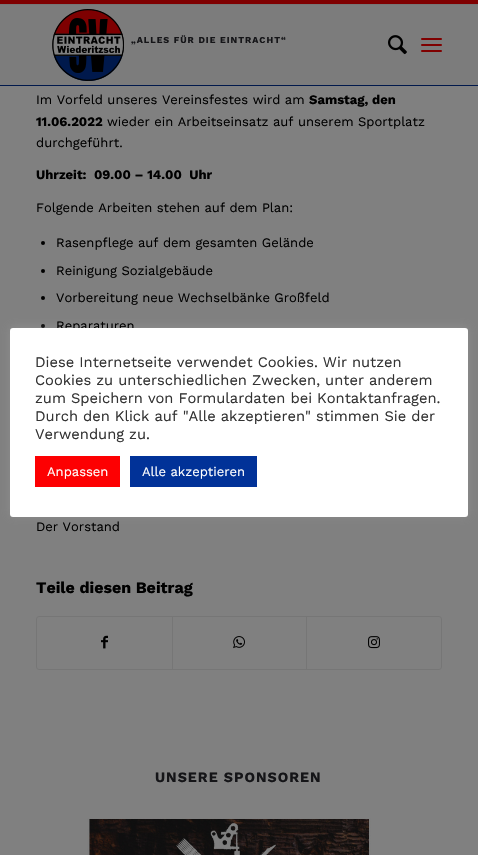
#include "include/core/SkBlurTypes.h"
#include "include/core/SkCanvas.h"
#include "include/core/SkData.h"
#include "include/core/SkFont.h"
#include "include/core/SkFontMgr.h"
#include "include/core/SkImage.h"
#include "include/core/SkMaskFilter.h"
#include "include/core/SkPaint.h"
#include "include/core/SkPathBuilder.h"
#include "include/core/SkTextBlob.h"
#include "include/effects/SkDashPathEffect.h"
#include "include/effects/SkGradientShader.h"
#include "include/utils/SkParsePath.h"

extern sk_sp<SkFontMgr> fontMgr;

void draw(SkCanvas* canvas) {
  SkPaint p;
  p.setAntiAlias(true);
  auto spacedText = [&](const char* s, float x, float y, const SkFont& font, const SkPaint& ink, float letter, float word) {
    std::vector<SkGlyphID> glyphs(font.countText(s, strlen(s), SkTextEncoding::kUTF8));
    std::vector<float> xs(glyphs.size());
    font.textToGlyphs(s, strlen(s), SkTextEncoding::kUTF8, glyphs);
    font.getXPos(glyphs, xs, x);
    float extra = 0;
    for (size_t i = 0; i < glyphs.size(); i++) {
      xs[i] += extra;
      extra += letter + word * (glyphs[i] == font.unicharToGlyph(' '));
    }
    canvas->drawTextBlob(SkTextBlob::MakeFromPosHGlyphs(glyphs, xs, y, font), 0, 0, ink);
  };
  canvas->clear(SkColorSetRGB(128, 128, 128));
  p.setColor(SkColorSetRGB(127, 0, 1));
  canvas->drawRect(SkRect::MakeLTRB(0, 0, 478, 4), p);
  p.setColor(SkColorSetRGB(118, 118, 118));
  canvas->drawRect(SkRect::MakeLTRB(0, 4, 478, 5), p);
  p.setColor(SkColorSetRGB(124, 124, 124));
  canvas->drawRect(SkRect::MakeLTRB(0, 5, 478, 85), p);
  p.setColor(SkColorSetRGB(1, 25, 76));
  canvas->drawRect(SkRect::MakeLTRB(0, 85, 478, 86), p);
  canvas->drawImageRect(SkImages::DeferredFromEncodedData(SkData::MakeFromFileName("images/1.png")), SkRect::MakeLTRB(52, 9, 124, 81), SkSamplingOptions());
  canvas->drawImageRect(SkImages::DeferredFromEncodedData(SkData::MakeFromFileName("images/2.png")), SkRect::MakeLTRB(388, 35, 407, 55), SkSamplingOptions());
  p.setColor(SkColorSetRGB(127, 0, 0));
  canvas->drawRoundRect(SkRect::MakeLTRB(421, 44, 442, 46), 1, 1, p);
  canvas->drawRoundRect(SkRect::MakeLTRB(421, 38, 442, 40), 1, 1, p);
  canvas->drawRoundRect(SkRect::MakeLTRB(421, 50, 442, 52), 1, 1, p);
  p.setColor(SK_ColorBLACK);
  canvas->drawCircle(43, 243, 2, p);
  canvas->drawCircle(43, 271, 2, p);
  canvas->drawCircle(43, 298, 2, p);
  canvas->drawCircle(43, 326, 2, p);
  p.setStyle(SkPaint::kStroke_Style);
  p.setStrokeWidth(1);
  p.setColor(SkColorSetRGB(118, 118, 118));
  canvas->drawRoundRect(SkRect::MakeLTRB(36.5f, 616.5f, 441.5f, 669.5f), 2.5f, 2.5f, p);
  canvas->drawImageRect(SkImages::DeferredFromEncodedData(SkData::MakeFromFileName("images/3.png")), SkRect::MakeLTRB(101, 635, 108, 649), SkSamplingOptions());
  p.setStyle(SkPaint::kFill_Style);
  canvas->drawRect(SkRect::MakeLTRB(172, 617, 173, 669), p);
  canvas->drawImageRect(SkImages::DeferredFromEncodedData(SkData::MakeFromFileName("images/4.png")), SkRect::MakeLTRB(233, 636, 245, 649), SkSamplingOptions());
  canvas->drawRect(SkRect::MakeLTRB(306, 617, 307, 669), p);
  canvas->drawImageRect(SkImages::DeferredFromEncodedData(SkData::MakeFromFileName("images/5.png")), SkRect::MakeLTRB(368, 636, 380, 649), SkSamplingOptions());
  canvas->drawImageRect(SkImages::DeferredFromEncodedData(SkData::MakeFromFileName("images/6.png")), SkRect::MakeLTRB(87, 818, 371, 855), SkSamplingOptions());
  p.setColor(SkColorSetARGB(77, 172, 171, 171));
  p.setMaskFilter(SkMaskFilter::MakeBlur(kNormal_SkBlurStyle, 5));
  canvas->drawRoundRect(SkRect::MakeLTRB(10, 327, 468, 516), 3, 3, p);
  p.setMaskFilter(nullptr);
  SkFont font1(fontMgr->matchFamilyStyle("Work Sans", SkFontStyle::Bold()), 9);
  font1.setSubpixel(true);
  p.setColor(SkColorSetRGB(21, 21, 24));
  spacedText("„ALLES FÜR DIE EINTRACHT“", 131, 43, font1, p, 1, 0);
  SkFont font2(fontMgr->matchFamilyStyle("Work Sans", SkFontStyle::Normal()), 13);
  font2.setSubpixel(true);
  p.setColor(SK_ColorBLACK);
  canvas->drawString("Im Vorfeld unseres Vereinsfestes wird am", 36, 104, font2, p);
  SkFont font3(fontMgr->matchFamilyStyle("Work Sans", SkFontStyle::Bold()), 13);
  font3.setSubpixel(true);
  canvas->drawString("Samstag, den", 309, 104, font3, p);
  canvas->drawString("11.06.2022", 36, 126, font3, p);
  canvas->drawString("wieder ein Arbeitseinsatz auf unserem Sportplatz", 107, 126, font2, p);
  canvas->drawString("durchgeführt.", 36, 147, font2, p);
  canvas->drawString("Uhrzeit:  09.00 – 14.00  Uhr", 36, 179, font3, p);
  canvas->drawString("Folgende Arbeiten stehen auf dem Plan:", 36, 212, font2, p);
  canvas->drawString("Rasenpflege auf dem gesamten Gelände", 56, 247, font2, p);
  canvas->drawString("Reinigung Sozialgebäude", 56, 275, font2, p);
  canvas->drawString("Vorbereitung neue Wechselbänke Großfeld", 56, 302, font2, p);
  canvas->drawString("Reparaturen", 56, 330, font2, p);
  canvas->drawString("Der Vorstand", 36, 531, font2, p);
  SkFont font4(fontMgr->matchFamilyStyle("Work Sans", SkFontStyle::Bold()), 16);
  font4.setSubpixel(true);
  canvas->drawString("Teile diesen Beitrag", 36, 593, font4, p);
  SkFont font5(fontMgr->matchFamilyStyle("Work Sans", SkFontStyle::Bold()), 14.25f);
  font5.setSubpixel(true);
  p.setColor(SkColorSetRGB(21, 21, 24));
  spacedText("UNSERE SPONSOREN", 155, 782, font5, p, 1, 0);
  p.setColor(SK_ColorWHITE);
  canvas->drawRoundRect(SkRect::MakeLTRB(10, 328, 468, 517), 3, 3, p);
  SkFont font6(fontMgr->matchFamilyStyle("Work Sans", SkFontStyle::Normal()), 14.7f);
  font6.setSubpixel(true);
  p.setColor(SkColorSetRGB(51, 51, 51));
  canvas->drawString("Diese Internetseite verwendet Cookies. Wir nutzen", 35, 367, font6, p);
  canvas->drawString("Cookies zu unterschiedlichen Zwecken, unter anderem", 35, 385, font6, p);
  canvas->drawString("zum Speichern von Formulardaten bei Kontaktanfragen.", 35, 403, font6, p);
  canvas->drawString("Durch den Klick auf \"Alle akzeptieren\" stimmen Sie der", 35, 421, font6, p);
  canvas->drawString("Verwendung zu.", 35, 439, font6, p);
  p.setColor(SkColorSetRGB(253, 0, 2));
  canvas->drawRect(SkRect::MakeLTRB(35, 456, 120, 487), p);
  p.setColor(SK_ColorWHITE);
  canvas->drawString("Anpassen", 47, 476, font2, p);
  p.setColor(SkColorSetRGB(1, 50, 152));
  canvas->drawRect(SkRect::MakeLTRB(130, 456, 257, 487), p);
  p.setColor(SK_ColorWHITE);
  canvas->drawString("Alle akzeptieren", 142, 476, font2, p);
}
